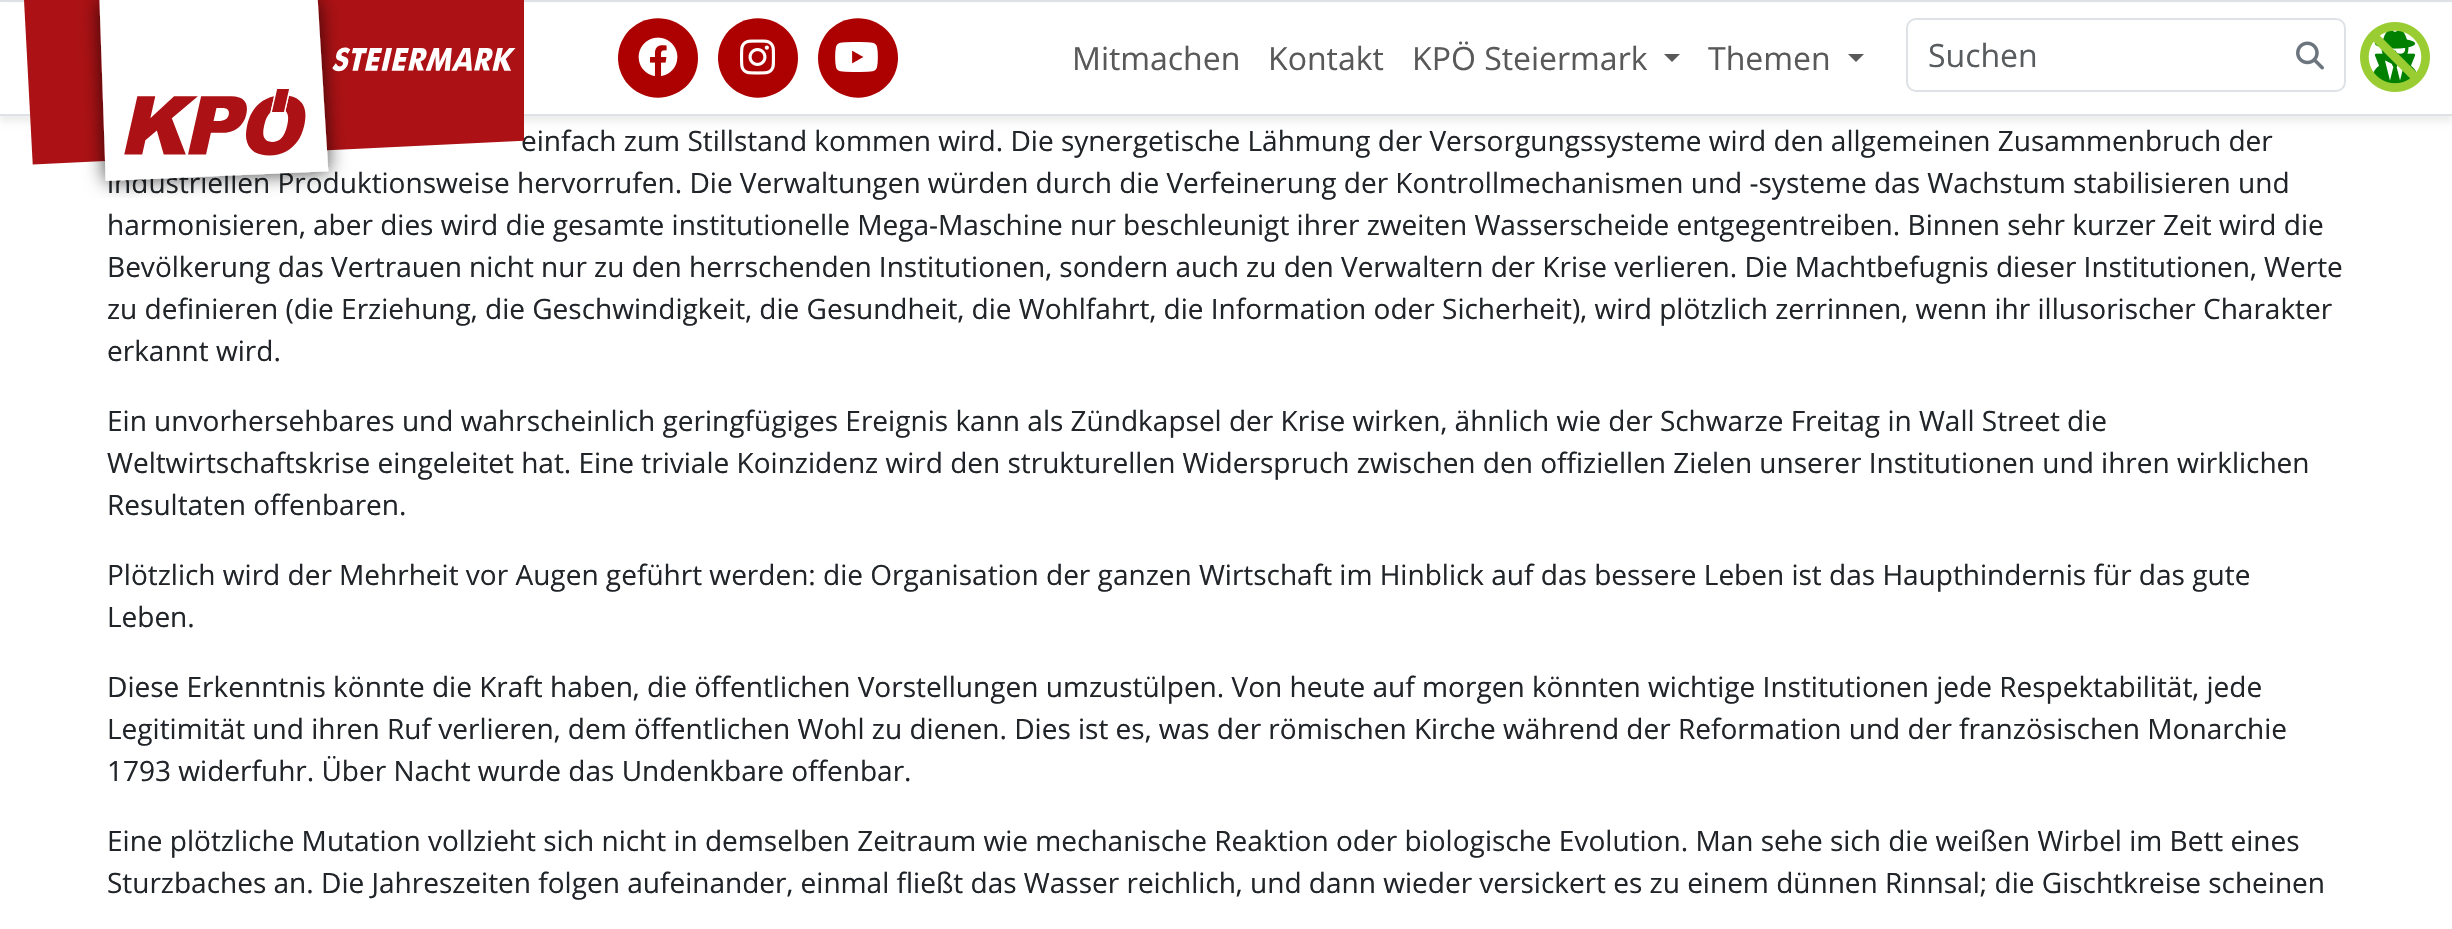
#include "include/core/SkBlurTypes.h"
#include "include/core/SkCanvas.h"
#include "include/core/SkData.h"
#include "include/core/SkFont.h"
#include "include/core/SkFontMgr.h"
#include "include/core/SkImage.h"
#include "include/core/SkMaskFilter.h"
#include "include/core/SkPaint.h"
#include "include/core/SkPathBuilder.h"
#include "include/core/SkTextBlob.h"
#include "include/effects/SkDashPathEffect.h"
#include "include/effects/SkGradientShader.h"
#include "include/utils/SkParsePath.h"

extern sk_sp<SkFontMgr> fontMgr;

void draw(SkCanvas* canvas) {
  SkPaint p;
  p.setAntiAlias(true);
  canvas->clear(SK_ColorWHITE);
  p.setColor(SkColorSetRGB(238, 238, 238));
  p.setMaskFilter(SkMaskFilter::MakeBlur(kNormal_SkBlurStyle, 3));
  canvas->drawRect(SkRect::MakeLTRB(0, 6, 2452, 122), p);
  p.setMaskFilter(nullptr);
  p.setColor(SK_ColorWHITE);
  canvas->drawRect(SkRect::MakeLTRB(0, 3, 2452, 114), p);
  p.setColor(SkColorSetRGB(222, 226, 230));
  canvas->drawRect(SkRect::MakeLTRB(0, 0, 2452, 2), p);
  canvas->drawRect(SkRect::MakeLTRB(0, 114, 2452, 116), p);
  p.setColor(SkColorSetRGB(173, 0, 0));
  canvas->drawPath(SkPathBuilder().moveTo(618, 58).cubicTo(618, 67, 621, 75, 626, 82).cubicTo(650, 112, 698, 96, 698, 58).cubicTo(698, 20, 650, 4, 626, 34).cubicTo(621, 41, 618, 49, 618, 58).close().detach(), p);
  canvas->drawImageRect(SkImages::DeferredFromEncodedData(SkData::MakeFromFileName("images/2.png")), SkRect::MakeLTRB(638, 37, 678, 77), SkSamplingOptions());
  canvas->drawPath(SkPathBuilder().moveTo(718, 58).cubicTo(718, 67, 721, 75, 726, 82).cubicTo(750, 112, 798, 96, 798, 58).cubicTo(798, 20, 750, 4, 726, 34).cubicTo(721, 41, 718, 49, 718, 58).close().detach(), p);
  canvas->drawImageRect(SkImages::DeferredFromEncodedData(SkData::MakeFromFileName("images/3.png")), SkRect::MakeLTRB(740, 39, 775, 75), SkSamplingOptions());
  canvas->drawPath(SkPathBuilder().moveTo(818, 58).cubicTo(818, 96, 866, 112, 890, 82).cubicTo(895, 75, 898, 67, 898, 58).cubicTo(898, 20, 850, 4, 826, 34).cubicTo(821, 41, 818, 49, 818, 58).close().detach(), p);
  canvas->drawImageRect(SkImages::DeferredFromEncodedData(SkData::MakeFromFileName("images/4.png")), SkRect::MakeLTRB(835, 42, 878, 72), SkSamplingOptions());
  p.setColor(SkColorSetRGB(89, 89, 89));
  canvas->drawPath(SkPathBuilder().moveTo(1664, 54).lineTo(1680, 54).lineTo(1672, 62).close().detach(), p);
  canvas->drawPath(SkPathBuilder().moveTo(1848, 54).lineTo(1864, 54).lineTo(1856, 62).close().detach(), p);
  p.setStyle(SkPaint::kStroke_Style);
  p.setStrokeWidth(2);
  p.setColor(SkColorSetRGB(222, 226, 230));
  canvas->drawRoundRect(SkRect::MakeLTRB(1907, 19, 2345, 91), 9, 9, p);
  canvas->drawImageRect(SkImages::DeferredFromEncodedData(SkData::MakeFromFileName("images/5.png")), SkRect::MakeLTRB(2296, 41, 2324, 70), SkSamplingOptions());
  canvas->drawImageRect(SkImages::DeferredFromEncodedData(SkData::MakeFromFileName("images/6.png")), SkRect::MakeLTRB(2360, 22, 2430, 92), SkSamplingOptions());
  SkFont font1(fontMgr->matchFamilyStyle("Open Sans", SkFontStyle::Normal()), 32);
  font1.setSubpixel(true);
  p.setStyle(SkPaint::kFill_Style);
  p.setColor(SkColorSetRGB(89, 89, 89));
  canvas->drawString("Mitmachen", 1072, 70, font1, p);
  canvas->drawString("Kontakt", 1268, 70, font1, p);
  canvas->drawString("KPÖ Steiermark", 1412, 70, font1, p);
  canvas->drawString("Themen", 1708, 70, font1, p);
  p.setColor(SkColorSetRGB(89, 92, 95));
  canvas->drawString("Suchen", 1928, 67, font1, p);
  SkFont font2(fontMgr->matchFamilyStyle("Open Sans", SkFontStyle::Normal()), 28);
  font2.setSubpixel(true);
  p.setColor(SkColorSetRGB(33, 37, 41));
  canvas->drawString("einfach zum Stillstand kommen wird. Die synergetische Lähmung der Versorgungssysteme wird den allgemeinen Zusammenbruch der", 521, 151, font2, p);
  canvas->drawString("industriellen Produktionsweise hervorrufen. Die Verwaltungen würden durch die Verfeinerung der Kontrollmechanismen und -systeme das Wachstum stabilisieren und", 107, 193, font2, p);
  canvas->drawImageRect(SkImages::DeferredFromEncodedData(SkData::MakeFromFileName("images/1.png")), SkRect::MakeLTRB(24, 0, 524, 198), SkSamplingOptions());
  canvas->drawString("harmonisieren, aber dies wird die gesamte institutionelle Mega-Maschine nur beschleunigt ihrer zweiten Wasserscheide entgegentreiben. Binnen sehr kurzer Zeit wird die", 107, 235, font2, p);
  canvas->drawString("Bevölkerung das Vertrauen nicht nur zu den herrschenden Institutionen, sondern auch zu den Verwaltern der Krise verlieren. Die Machtbefugnis dieser Institutionen, Werte", 107, 277, font2, p);
  canvas->drawString("zu definieren (die Erziehung, die Geschwindigkeit, die Gesundheit, die Wohlfahrt, die Information oder Sicherheit), wird plötzlich zerrinnen, wenn ihr illusorischer Charakter", 107, 319, font2, p);
  canvas->drawString("erkannt wird.", 107, 361, font2, p);
  canvas->drawString("Ein unvorhersehbares und wahrscheinlich geringfügiges Ereignis kann als Zündkapsel der Krise wirken, ähnlich wie der Schwarze Freitag in Wall Street die", 107, 431, font2, p);
  canvas->drawString("Weltwirtschaftskrise eingeleitet hat. Eine triviale Koinzidenz wird den strukturellen Widerspruch zwischen den offiziellen Zielen unserer Institutionen und ihren wirklichen", 107, 473, font2, p);
  canvas->drawString("Resultaten offenbaren.", 107, 515, font2, p);
  canvas->drawString("Plötzlich wird der Mehrheit vor Augen geführt werden: die Organisation der ganzen Wirtschaft im Hinblick auf das bessere Leben ist das Haupthindernis für das gute", 107, 585, font2, p);
  canvas->drawString("Leben.", 107, 627, font2, p);
  canvas->drawString("Diese Erkenntnis könnte die Kraft haben, die öffentlichen Vorstellungen umzustülpen. Von heute auf morgen könnten wichtige Institutionen jede Respektabilität, jede", 107, 697, font2, p);
  canvas->drawString("Legitimität und ihren Ruf verlieren, dem öffentlichen Wohl zu dienen. Dies ist es, was der römischen Kirche während der Reformation und der französischen Monarchie", 107, 739, font2, p);
  canvas->drawString("1793 widerfuhr. Über Nacht wurde das Undenkbare offenbar.", 107, 781, font2, p);
  canvas->drawString("Eine plötzliche Mutation vollzieht sich nicht in demselben Zeitraum wie mechanische Reaktion oder biologische Evolution. Man sehe sich die weißen Wirbel im Bett eines", 107, 851, font2, p);
  canvas->drawString("Sturzbaches an. Die Jahreszeiten folgen aufeinander, einmal fließt das Wasser reichlich, und dann wieder versickert es zu einem dünnen Rinnsal; die Gischtkreise scheinen", 107, 893, font2, p);
}
